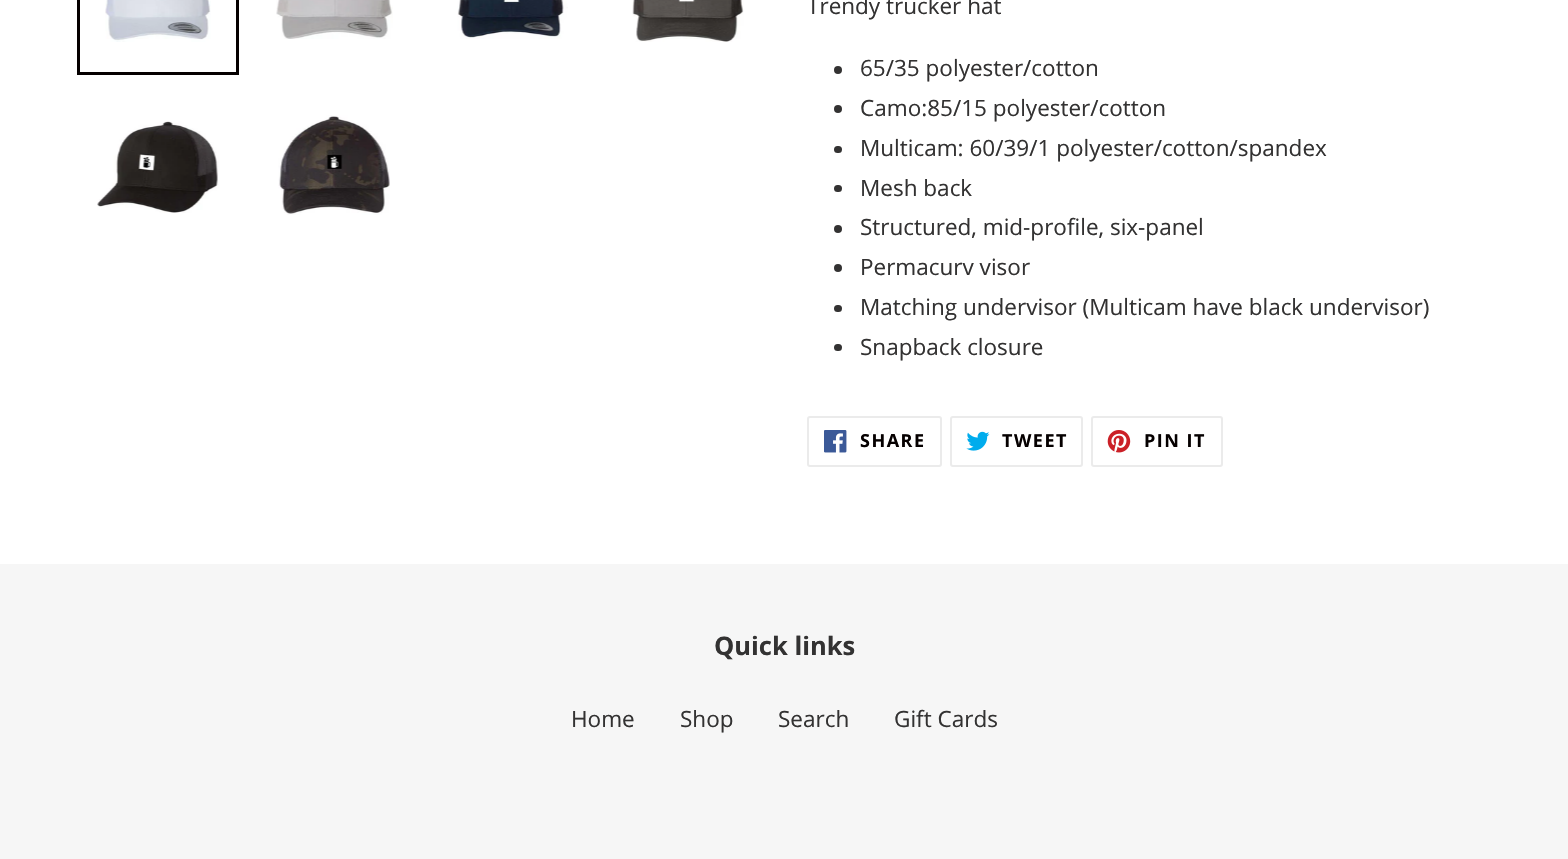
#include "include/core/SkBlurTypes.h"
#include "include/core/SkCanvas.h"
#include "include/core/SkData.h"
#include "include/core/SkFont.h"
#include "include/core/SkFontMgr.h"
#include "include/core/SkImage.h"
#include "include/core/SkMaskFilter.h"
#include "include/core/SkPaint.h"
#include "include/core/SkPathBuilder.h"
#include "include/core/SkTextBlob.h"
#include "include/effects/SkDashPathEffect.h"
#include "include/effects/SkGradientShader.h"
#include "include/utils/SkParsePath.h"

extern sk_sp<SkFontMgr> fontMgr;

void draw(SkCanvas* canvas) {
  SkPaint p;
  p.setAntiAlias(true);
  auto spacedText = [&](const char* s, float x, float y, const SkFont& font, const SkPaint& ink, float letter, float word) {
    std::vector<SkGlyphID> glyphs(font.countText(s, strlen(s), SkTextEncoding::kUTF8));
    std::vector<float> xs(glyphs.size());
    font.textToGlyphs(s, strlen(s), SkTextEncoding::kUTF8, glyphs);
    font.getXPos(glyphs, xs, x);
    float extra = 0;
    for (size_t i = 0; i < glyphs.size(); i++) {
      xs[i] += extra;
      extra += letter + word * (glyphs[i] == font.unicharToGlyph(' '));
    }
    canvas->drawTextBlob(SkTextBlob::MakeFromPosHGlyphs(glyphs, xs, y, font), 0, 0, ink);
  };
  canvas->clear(SK_ColorWHITE);
  p.setStyle(SkPaint::kStroke_Style);
  p.setStrokeWidth(3);
  p.setColor(SkColorSetRGB(5, 0, 0));
  canvas->drawRect(SkRect::MakeLTRB(78.5f, -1.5f, 237.5f, 73.5f), p);
  canvas->drawImageRect(SkImages::DeferredFromEncodedData(SkData::MakeFromFileName("images/1.png")), SkRect::MakeLTRB(105, 0, 211, 42), SkSamplingOptions());
  canvas->drawImageRect(SkImages::DeferredFromEncodedData(SkData::MakeFromFileName("images/2.png")), SkRect::MakeLTRB(276, 0, 393, 39), SkSamplingOptions());
  canvas->drawImageRect(SkImages::DeferredFromEncodedData(SkData::MakeFromFileName("images/3.png")), SkRect::MakeLTRB(457, 0, 568, 39), SkSamplingOptions());
  canvas->drawImageRect(SkImages::DeferredFromEncodedData(SkData::MakeFromFileName("images/4.png")), SkRect::MakeLTRB(632, 0, 744, 42), SkSamplingOptions());
  canvas->drawImageRect(SkImages::DeferredFromEncodedData(SkData::MakeFromFileName("images/5.png")), SkRect::MakeLTRB(97, 121, 219, 213), SkSamplingOptions());
  canvas->drawImageRect(SkImages::DeferredFromEncodedData(SkData::MakeFromFileName("images/6.png")), SkRect::MakeLTRB(278, 115, 390, 215), SkSamplingOptions());
  p.setStyle(SkPaint::kFill_Style);
  p.setColor(SkColorSetRGB(51, 50, 50));
  canvas->drawCircle(838, 70, 4, p);
  canvas->drawCircle(838, 109, 4, p);
  canvas->drawRoundRect(SkRect::MakeLTRB(834, 146, 842, 153), 3.5f, 3.5f, p);
  canvas->drawRoundRect(SkRect::MakeLTRB(834, 185, 842, 192), 3.5f, 3.5f, p);
  canvas->drawCircle(838, 229, 4, p);
  canvas->drawCircle(838, 268, 4, p);
  canvas->drawRoundRect(SkRect::MakeLTRB(834, 305, 842, 312), 3.5f, 3.5f, p);
  canvas->drawRoundRect(SkRect::MakeLTRB(834, 344, 842, 351), 3.5f, 3.5f, p);
  p.setStyle(SkPaint::kStroke_Style);
  p.setStrokeWidth(2);
  p.setColor(SkColorSetRGB(235, 235, 235));
  canvas->drawRoundRect(SkRect::MakeLTRB(808, 417, 941, 466), 2, 2, p);
  canvas->drawImageRect(SkImages::DeferredFromEncodedData(SkData::MakeFromFileName("images/7.png")), SkRect::MakeLTRB(824, 430, 847, 453), SkSamplingOptions());
  canvas->drawRoundRect(SkRect::MakeLTRB(951, 417, 1082, 466), 2, 2, p);
  canvas->drawImageRect(SkImages::DeferredFromEncodedData(SkData::MakeFromFileName("images/8.png")), SkRect::MakeLTRB(966, 431, 990, 451), SkSamplingOptions());
  canvas->drawRoundRect(SkRect::MakeLTRB(1092, 417, 1222, 466), 2, 2, p);
  canvas->drawImageRect(SkImages::DeferredFromEncodedData(SkData::MakeFromFileName("images/9.png")), SkRect::MakeLTRB(1107, 430, 1131, 453), SkSamplingOptions());
  p.setStyle(SkPaint::kFill_Style);
  p.setColor(SkColorSetRGB(246, 246, 246));
  canvas->drawRect(SkRect::MakeLTRB(0, 564, 1568, 859), p);
  SkFont font1(fontMgr->matchFamilyStyle("Open Sans", SkFontStyle::Normal()), 22.5f);
  font1.setSubpixel(true);
  p.setColor(SkColorSetRGB(51, 50, 50));
  canvas->drawString("Trendy trucker hat", 807, 14, font1, p);
  canvas->drawString("65/35 polyester/cotton", 860, 76, font1, p);
  canvas->drawString("Camo:85/15 polyester/cotton", 860, 116, font1, p);
  canvas->drawString("Multicam: 60/39/1 polyester/cotton/spandex", 860, 156, font1, p);
  canvas->drawString("Mesh back", 860, 196, font1, p);
  canvas->drawString("Structured, mid-profile, six-panel", 860, 235, font1, p);
  canvas->drawString("Permacurv visor", 860, 275, font1, p);
  canvas->drawString("Matching undervisor (Multicam have black undervisor)", 860, 315, font1, p);
  canvas->drawString("Snapback closure", 860, 355, font1, p);
  SkFont font2(fontMgr->matchFamilyStyle("Open Sans", SkFontStyle::Bold()), 18);
  font2.setSubpixel(true);
  p.setColor(SkColorSetRGB(5, 0, 0));
  spacedText("SHARE", 860, 447, font2, p, 1.5f, 0);
  spacedText("TWEET", 1002, 447, font2, p, 1.5f, 0);
  spacedText("PIN IT", 1144, 447, font2, p, 1.5f, 0);
  SkFont font3(fontMgr->matchFamilyStyle("Open Sans", SkFontStyle::Bold()), 25.5f);
  font3.setSubpixel(true);
  p.setColor(SkColorSetRGB(51, 50, 50));
  canvas->drawString("Quick links", 714, 655, font3, p);
  canvas->drawString("Home", 571, 727, font1, p);
  canvas->drawString("Shop", 680, 727, font1, p);
  canvas->drawString("Search", 778, 727, font1, p);
  canvas->drawString("Gift Cards", 894, 727, font1, p);
}
